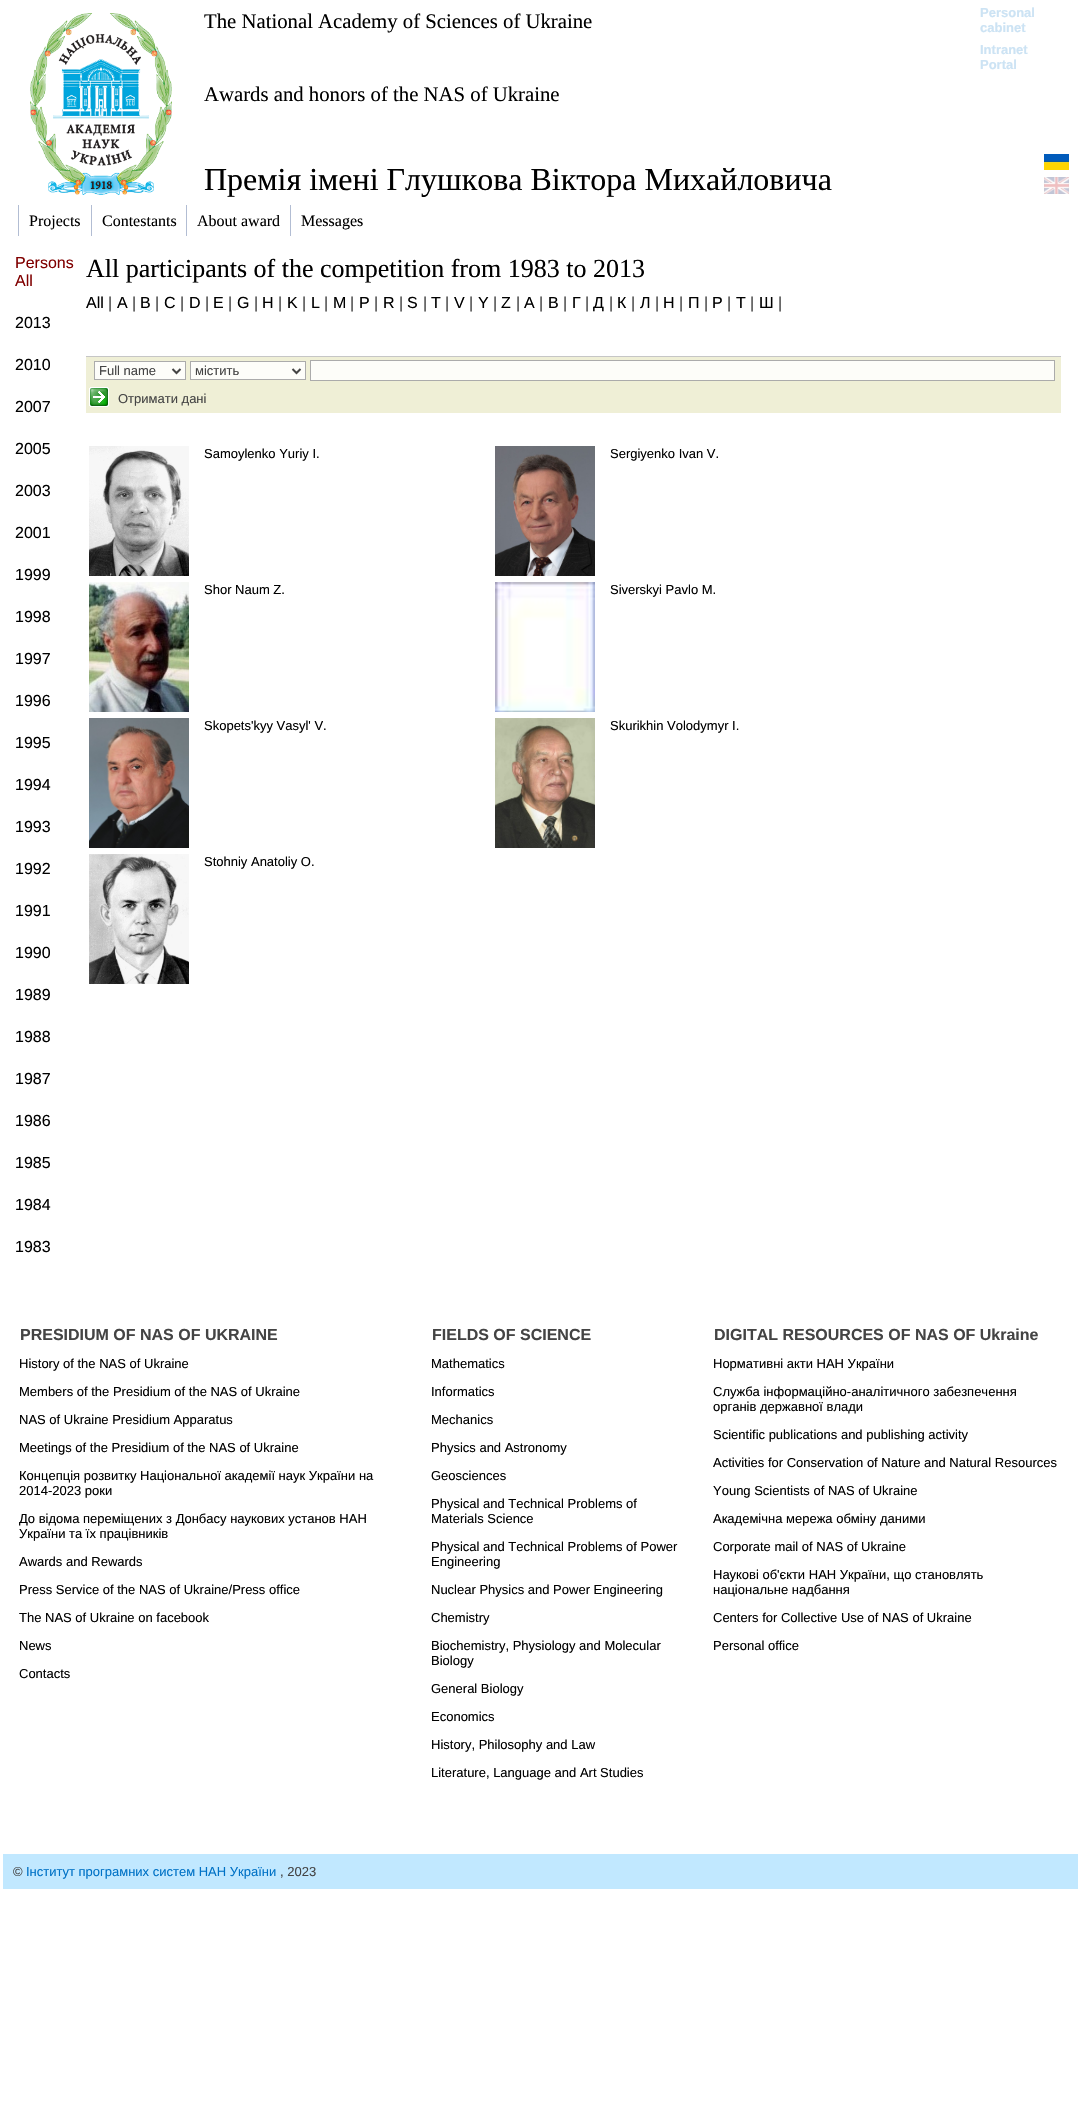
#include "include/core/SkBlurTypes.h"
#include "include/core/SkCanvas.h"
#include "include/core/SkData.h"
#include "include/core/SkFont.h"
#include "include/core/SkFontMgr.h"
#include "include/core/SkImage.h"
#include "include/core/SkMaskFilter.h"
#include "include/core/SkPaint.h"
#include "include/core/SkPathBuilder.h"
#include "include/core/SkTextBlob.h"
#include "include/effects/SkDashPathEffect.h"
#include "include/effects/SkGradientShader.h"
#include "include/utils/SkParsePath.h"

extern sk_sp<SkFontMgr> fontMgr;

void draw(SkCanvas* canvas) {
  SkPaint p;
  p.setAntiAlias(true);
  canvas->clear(SK_ColorWHITE);
  canvas->drawImageRect(SkImages::DeferredFromEncodedData(SkData::MakeFromFileName("images/1.png")), SkRect::MakeLTRB(30, 13, 172, 195), SkSamplingOptions());
  canvas->drawImageRect(SkImages::DeferredFromEncodedData(SkData::MakeFromFileName("images/2.png")), SkRect::MakeLTRB(1044, 154, 1069, 170), SkSamplingOptions());
  canvas->drawImageRect(SkImages::DeferredFromEncodedData(SkData::MakeFromFileName("images/3.png")), SkRect::MakeLTRB(1044, 177, 1069, 194), SkSamplingOptions());
  p.setColor(SkColorSetRGB(178, 189, 211));
  canvas->drawRect(SkRect::MakeLTRB(18, 205, 19, 236), p);
  canvas->drawRect(SkRect::MakeLTRB(91, 205, 92, 236), p);
  canvas->drawRect(SkRect::MakeLTRB(186, 205, 187, 236), p);
  canvas->drawRect(SkRect::MakeLTRB(290, 205, 291, 236), p);
  p.setColor(SkColorSetRGB(198, 198, 198));
  canvas->drawRect(SkRect::MakeLTRB(86, 356, 1061, 357), p);
  p.setColor(SkColorSetRGB(239, 239, 214));
  canvas->drawRect(SkRect::MakeLTRB(86, 357, 1061, 413), p);
  p.setColor(SkColorSetRGB(253, 253, 249));
  canvas->drawRect(SkRect::MakeLTRB(94.5f, 361.5f, 185.5f, 379.5f), p);
  p.setStyle(SkPaint::kStroke_Style);
  p.setStrokeWidth(1);
  p.setColor(SkColorSetRGB(171, 171, 171));
  canvas->drawRect(SkRect::MakeLTRB(94.5f, 361.5f, 185.5f, 379.5f), p);
  p.setStrokeWidth(2);
  p.setColor(SkColorSetRGB(68, 68, 68));
  canvas->drawPath(SkPathBuilder().moveTo(172.5f, 369).lineTo(176.5f, 373).lineTo(180.5f, 369).detach(), p);
  p.setStyle(SkPaint::kFill_Style);
  p.setColor(SkColorSetRGB(253, 253, 249));
  canvas->drawRect(SkRect::MakeLTRB(190.5f, 361.5f, 305.5f, 379.5f), p);
  p.setStyle(SkPaint::kStroke_Style);
  p.setStrokeWidth(1);
  p.setColor(SkColorSetRGB(171, 171, 171));
  canvas->drawRect(SkRect::MakeLTRB(190.5f, 361.5f, 305.5f, 379.5f), p);
  p.setStrokeWidth(2);
  p.setColor(SkColorSetRGB(68, 68, 68));
  canvas->drawPath(SkPathBuilder().moveTo(292.5f, 369).lineTo(296.5f, 373).lineTo(300.5f, 369).detach(), p);
  p.setStyle(SkPaint::kFill_Style);
  p.setColor(SkColorSetRGB(253, 253, 249));
  canvas->drawRect(SkRect::MakeLTRB(310.5f, 360.5f, 1054.5f, 380.5f), p);
  p.setStyle(SkPaint::kStroke_Style);
  p.setStrokeWidth(1);
  p.setColor(SkColorSetRGB(171, 171, 171));
  canvas->drawRect(SkRect::MakeLTRB(310.5f, 360.5f, 1054.5f, 380.5f), p);
  canvas->drawImageRect(SkImages::DeferredFromEncodedData(SkData::MakeFromFileName("images/4.png")), SkRect::MakeLTRB(89, 387, 109, 407), SkSamplingOptions());
  canvas->drawImageRect(SkImages::DeferredFromEncodedData(SkData::MakeFromFileName("images/5.png")), SkRect::MakeLTRB(89, 446, 189, 576), SkSamplingOptions());
  canvas->drawImageRect(SkImages::DeferredFromEncodedData(SkData::MakeFromFileName("images/6.png")), SkRect::MakeLTRB(495, 446, 595, 576), SkSamplingOptions());
  canvas->drawImageRect(SkImages::DeferredFromEncodedData(SkData::MakeFromFileName("images/7.png")), SkRect::MakeLTRB(89, 582, 189, 712), SkSamplingOptions());
  canvas->drawImageRect(SkImages::DeferredFromEncodedData(SkData::MakeFromFileName("images/8.png")), SkRect::MakeLTRB(495, 582, 595, 712), SkSamplingOptions());
  canvas->drawImageRect(SkImages::DeferredFromEncodedData(SkData::MakeFromFileName("images/9.png")), SkRect::MakeLTRB(89, 718, 189, 848), SkSamplingOptions());
  canvas->drawImageRect(SkImages::DeferredFromEncodedData(SkData::MakeFromFileName("images/10.png")), SkRect::MakeLTRB(495, 718, 595, 848), SkSamplingOptions());
  canvas->drawImageRect(SkImages::DeferredFromEncodedData(SkData::MakeFromFileName("images/11.png")), SkRect::MakeLTRB(89, 854, 189, 984), SkSamplingOptions());
  p.setStyle(SkPaint::kFill_Style);
  p.setColor(SkColorSetRGB(193, 232, 255));
  canvas->drawRect(SkRect::MakeLTRB(3, 1854, 1078, 1889), p);
  SkFont font1(fontMgr->matchFamilyStyle("Liberation Serif", SkFontStyle::Normal()), 20.75f);
  font1.setSubpixel(true);
  p.setColor(SK_ColorBLACK);
  canvas->drawString("The National Academy of Sciences of Ukraine", 204, 28, font1, p);
  SkFont font2(fontMgr->matchFamilyStyle("Liberation Sans", SkFontStyle::Bold()), 13);
  font2.setSubpixel(true);
  p.setColor(SkColorSetRGB(204, 227, 244));
  canvas->drawString("Personal", 980, 17, font2, p);
  canvas->drawString("cabinet", 980, 32, font2, p);
  canvas->drawString("Intranet", 980, 54, font2, p);
  canvas->drawString("Portal", 980, 69, font2, p);
  p.setColor(SK_ColorBLACK);
  canvas->drawString("Awards and honors of the NAS of Ukraine", 204, 101, font1, p);
  SkFont font3(fontMgr->matchFamilyStyle("Liberation Serif", SkFontStyle::Normal()), 32);
  font3.setSubpixel(true);
  canvas->drawString("Премія імені Глушкова Віктора Михайловича", 204, 190, font3, p);
  SkFont font4(fontMgr->matchFamilyStyle("Liberation Serif", SkFontStyle::Normal()), 16);
  font4.setSubpixel(true);
  canvas->drawString("Projects", 29, 226, font4, p);
  canvas->drawString("Contestants", 102, 226, font4, p);
  canvas->drawString("About award", 197, 226, font4, p);
  canvas->drawString("Messages", 301, 226, font4, p);
  SkFont font5(fontMgr->matchFamilyStyle("Liberation Sans", SkFontStyle::Normal()), 16);
  font5.setSubpixel(true);
  p.setColor(SkColorSetRGB(128, 0, 0));
  canvas->drawString("Persons", 15, 268, font5, p);
  canvas->drawString("All", 15, 286, font5, p);
  p.setColor(SK_ColorBLACK);
  canvas->drawString("2013", 15, 328, font5, p);
  canvas->drawString("2010", 15, 370, font5, p);
  canvas->drawString("2007", 15, 412, font5, p);
  canvas->drawString("2005", 15, 454, font5, p);
  canvas->drawString("2003", 15, 496, font5, p);
  canvas->drawString("2001", 15, 538, font5, p);
  canvas->drawString("1999", 15, 580, font5, p);
  canvas->drawString("1998", 15, 622, font5, p);
  canvas->drawString("1997", 15, 664, font5, p);
  canvas->drawString("1996", 15, 706, font5, p);
  canvas->drawString("1995", 15, 748, font5, p);
  canvas->drawString("1994", 15, 790, font5, p);
  canvas->drawString("1993", 15, 832, font5, p);
  canvas->drawString("1992", 15, 874, font5, p);
  canvas->drawString("1991", 15, 916, font5, p);
  canvas->drawString("1990", 15, 958, font5, p);
  canvas->drawString("1989", 15, 1000, font5, p);
  canvas->drawString("1988", 15, 1042, font5, p);
  canvas->drawString("1987", 15, 1084, font5, p);
  canvas->drawString("1986", 15, 1126, font5, p);
  canvas->drawString("1985", 15, 1168, font5, p);
  canvas->drawString("1984", 15, 1210, font5, p);
  canvas->drawString("1983", 15, 1252, font5, p);
  SkFont font6(fontMgr->matchFamilyStyle("Liberation Serif", SkFontStyle::Normal()), 26);
  font6.setSubpixel(true);
  canvas->drawString("All participants of the competition from 1983 to 2013", 86, 277, font6, p);
  canvas->drawString("All", 86, 308, font5, p);
  p.setColor(SkColorSetRGB(68, 68, 68));
  canvas->drawString("|", 108, 308, font5, p);
  p.setColor(SK_ColorBLACK);
  canvas->drawString("A", 117, 308, font5, p);
  p.setColor(SkColorSetRGB(68, 68, 68));
  canvas->drawString("|", 132, 308, font5, p);
  p.setColor(SK_ColorBLACK);
  canvas->drawString("B", 140, 308, font5, p);
  p.setColor(SkColorSetRGB(68, 68, 68));
  canvas->drawString("|", 155, 308, font5, p);
  p.setColor(SK_ColorBLACK);
  canvas->drawString("C", 164, 308, font5, p);
  p.setColor(SkColorSetRGB(68, 68, 68));
  canvas->drawString("|", 180, 308, font5, p);
  p.setColor(SK_ColorBLACK);
  canvas->drawString("D", 189, 308, font5, p);
  p.setColor(SkColorSetRGB(68, 68, 68));
  canvas->drawString("|", 205, 308, font5, p);
  p.setColor(SK_ColorBLACK);
  canvas->drawString("E", 213, 308, font5, p);
  p.setColor(SkColorSetRGB(68, 68, 68));
  canvas->drawString("|", 228, 308, font5, p);
  p.setColor(SK_ColorBLACK);
  canvas->drawString("G", 237, 308, font5, p);
  p.setColor(SkColorSetRGB(68, 68, 68));
  canvas->drawString("|", 254, 308, font5, p);
  p.setColor(SK_ColorBLACK);
  canvas->drawString("H", 262, 308, font5, p);
  p.setColor(SkColorSetRGB(68, 68, 68));
  canvas->drawString("|", 278, 308, font5, p);
  p.setColor(SK_ColorBLACK);
  canvas->drawString("K", 287, 308, font5, p);
  p.setColor(SkColorSetRGB(68, 68, 68));
  canvas->drawString("|", 302, 308, font5, p);
  p.setColor(SK_ColorBLACK);
  canvas->drawString("L", 311, 308, font5, p);
  p.setColor(SkColorSetRGB(68, 68, 68));
  canvas->drawString("|", 324, 308, font5, p);
  p.setColor(SK_ColorBLACK);
  canvas->drawString("M", 333, 308, font5, p);
  p.setColor(SkColorSetRGB(68, 68, 68));
  canvas->drawString("|", 350, 308, font5, p);
  p.setColor(SK_ColorBLACK);
  canvas->drawString("P", 359, 308, font5, p);
  p.setColor(SkColorSetRGB(68, 68, 68));
  canvas->drawString("|", 374, 308, font5, p);
  p.setColor(SK_ColorBLACK);
  canvas->drawString("R", 383, 308, font5, p);
  p.setColor(SkColorSetRGB(68, 68, 68));
  canvas->drawString("|", 399, 308, font5, p);
  p.setColor(SK_ColorBLACK);
  canvas->drawString("S", 407, 308, font5, p);
  p.setColor(SkColorSetRGB(68, 68, 68));
  canvas->drawString("|", 423, 308, font5, p);
  p.setColor(SK_ColorBLACK);
  canvas->drawString("T", 431, 308, font5, p);
  p.setColor(SkColorSetRGB(68, 68, 68));
  canvas->drawString("|", 445, 308, font5, p);
  p.setColor(SK_ColorBLACK);
  canvas->drawString("V", 454, 308, font5, p);
  p.setColor(SkColorSetRGB(68, 68, 68));
  canvas->drawString("|", 469, 308, font5, p);
  p.setColor(SK_ColorBLACK);
  canvas->drawString("Y", 478, 308, font5, p);
  p.setColor(SkColorSetRGB(68, 68, 68));
  canvas->drawString("|", 493, 308, font5, p);
  p.setColor(SK_ColorBLACK);
  canvas->drawString("Z", 501, 308, font5, p);
  p.setColor(SkColorSetRGB(68, 68, 68));
  canvas->drawString("|", 516, 308, font5, p);
  p.setColor(SK_ColorBLACK);
  canvas->drawString("А", 524, 308, font5, p);
  p.setColor(SkColorSetRGB(68, 68, 68));
  canvas->drawString("|", 539, 308, font5, p);
  p.setColor(SK_ColorBLACK);
  canvas->drawString("В", 548, 308, font5, p);
  p.setColor(SkColorSetRGB(68, 68, 68));
  canvas->drawString("|", 563, 308, font5, p);
  p.setColor(SK_ColorBLACK);
  canvas->drawString("Г", 572, 308, font5, p);
  p.setColor(SkColorSetRGB(68, 68, 68));
  canvas->drawString("|", 585, 308, font5, p);
  p.setColor(SK_ColorBLACK);
  canvas->drawString("Д", 593, 308, font5, p);
  p.setColor(SkColorSetRGB(68, 68, 68));
  canvas->drawString("|", 609, 308, font5, p);
  p.setColor(SK_ColorBLACK);
  canvas->drawString("К", 617, 308, font5, p);
  p.setColor(SkColorSetRGB(68, 68, 68));
  canvas->drawString("|", 631, 308, font5, p);
  p.setColor(SK_ColorBLACK);
  canvas->drawString("Л", 640, 308, font5, p);
  p.setColor(SkColorSetRGB(68, 68, 68));
  canvas->drawString("|", 655, 308, font5, p);
  p.setColor(SK_ColorBLACK);
  canvas->drawString("Н", 663, 308, font5, p);
  p.setColor(SkColorSetRGB(68, 68, 68));
  canvas->drawString("|", 679, 308, font5, p);
  p.setColor(SK_ColorBLACK);
  canvas->drawString("П", 688, 308, font5, p);
  p.setColor(SkColorSetRGB(68, 68, 68));
  canvas->drawString("|", 704, 308, font5, p);
  p.setColor(SK_ColorBLACK);
  canvas->drawString("Р", 712, 308, font5, p);
  p.setColor(SkColorSetRGB(68, 68, 68));
  canvas->drawString("|", 727, 308, font5, p);
  p.setColor(SK_ColorBLACK);
  canvas->drawString("Т", 736, 308, font5, p);
  p.setColor(SkColorSetRGB(68, 68, 68));
  canvas->drawString("|", 750, 308, font5, p);
  p.setColor(SK_ColorBLACK);
  canvas->drawString("Ш", 759, 308, font5, p);
  p.setColor(SkColorSetRGB(68, 68, 68));
  canvas->drawString("|", 778, 308, font5, p);
  SkFont font7(fontMgr->matchFamilyStyle("Liberation Sans", SkFontStyle::Normal()), 13);
  font7.setSubpixel(true);
  canvas->drawString("Full name", 99, 375, font7, p);
  canvas->drawString("містить", 195, 375, font7, p);
  canvas->drawString("Отримати дані", 118, 403, font7, p);
  p.setColor(SK_ColorBLACK);
  canvas->drawString("Samoylenko Yuriy I.", 204, 458, font7, p);
  canvas->drawString("Sergiyenko Ivan V.", 610, 458, font7, p);
  canvas->drawString("Shor Naum Z.", 204, 594, font7, p);
  canvas->drawString("Siverskyi Pavlo M.", 610, 594, font7, p);
  canvas->drawString("Skopetsʹkyy Vasylʹ V.", 204, 730, font7, p);
  canvas->drawString("Skurikhin Volodymyr I.", 610, 730, font7, p);
  canvas->drawString("Stohniy Anatoliy O.", 204, 866, font7, p);
  SkFont font8(fontMgr->matchFamilyStyle("Liberation Sans", SkFontStyle::Bold()), 16);
  font8.setSubpixel(true);
  p.setColor(SkColorSetRGB(68, 68, 68));
  canvas->drawString("PRESIDIUM OF NAS OF UKRAINE", 20, 1340, font8, p);
  p.setColor(SK_ColorBLACK);
  canvas->drawString("History of the NAS of Ukraine", 19, 1368, font7, p);
  canvas->drawString("Members of the Presidium of the NAS of Ukraine", 19, 1396, font7, p);
  canvas->drawString("NAS of Ukraine Presidium Apparatus", 19, 1424, font7, p);
  canvas->drawString("Meetings of the Presidium of the NAS of Ukraine", 19, 1452, font7, p);
  canvas->drawString("Концепція розвитку Національної академії наук України на", 19, 1480, font7, p);
  canvas->drawString("2014-2023 роки", 19, 1495, font7, p);
  canvas->drawString("До відома переміщених з Донбасу наукових установ НАН", 19, 1523, font7, p);
  canvas->drawString("України та їх працівників", 19, 1538, font7, p);
  canvas->drawString("Awards and Rewards", 19, 1566, font7, p);
  canvas->drawString("Press Service of the NAS of Ukraine/Press office", 19, 1594, font7, p);
  canvas->drawString("The NAS of Ukraine on facebook", 19, 1622, font7, p);
  canvas->drawString("News", 19, 1650, font7, p);
  canvas->drawString("Сontacts", 19, 1678, font7, p);
  p.setColor(SkColorSetRGB(68, 68, 68));
  canvas->drawString("FIELDS OF SCIENCE", 432, 1340, font8, p);
  p.setColor(SK_ColorBLACK);
  canvas->drawString("Mathematics", 431, 1368, font7, p);
  canvas->drawString("Informatics", 431, 1396, font7, p);
  canvas->drawString("Mechanics", 431, 1424, font7, p);
  canvas->drawString("Physics and Astronomy", 431, 1452, font7, p);
  canvas->drawString("Geosciences", 431, 1480, font7, p);
  canvas->drawString("Physical and Technical Problems of", 431, 1508, font7, p);
  canvas->drawString("Materials Science", 431, 1523, font7, p);
  canvas->drawString("Physical and Technical Problems of Power", 431, 1551, font7, p);
  canvas->drawString("Engineering", 431, 1566, font7, p);
  canvas->drawString("Nuclear Physics and Power Engineering", 431, 1594, font7, p);
  canvas->drawString("Chemistry", 431, 1622, font7, p);
  canvas->drawString("Biochemistry, Physiology and Molecular", 431, 1650, font7, p);
  canvas->drawString("Biology", 431, 1665, font7, p);
  canvas->drawString("General Biology", 431, 1693, font7, p);
  canvas->drawString("Economics", 431, 1721, font7, p);
  canvas->drawString("History, Philosophy and Law", 431, 1749, font7, p);
  canvas->drawString("Literature, Language and Art Studies", 431, 1777, font7, p);
  p.setColor(SkColorSetRGB(68, 68, 68));
  canvas->drawString("DIGITAL RESOURCES OF NAS OF Ukraine", 714, 1340, font8, p);
  p.setColor(SK_ColorBLACK);
  canvas->drawString("Нормативні акти НАН України", 713, 1368, font7, p);
  canvas->drawString("Служба інформаційно-аналітичного забезпечення", 713, 1396, font7, p);
  canvas->drawString("органів державної влади", 713, 1411, font7, p);
  canvas->drawString("Scientific publications and publishing activity", 713, 1439, font7, p);
  canvas->drawString("Activities for Conservation of Nature and Natural Resources", 713, 1467, font7, p);
  canvas->drawString("Young Scientists of NAS of Ukraine", 713, 1495, font7, p);
  canvas->drawString("Академічна мережа обміну даними", 713, 1523, font7, p);
  canvas->drawString("Corporate mail of NAS of Ukraine", 713, 1551, font7, p);
  canvas->drawString("Наукові об'єкти НАН України, що становлять", 713, 1579, font7, p);
  canvas->drawString("національне надбання", 713, 1594, font7, p);
  canvas->drawString("Centers for Collective Use of NAS of Ukraine", 713, 1622, font7, p);
  canvas->drawString("Personal office", 713, 1650, font7, p);
  p.setColor(SkColorSetRGB(68, 68, 68));
  canvas->drawString("©", 13, 1876, font7, p);
  p.setColor(SkColorSetRGB(0, 114, 198));
  canvas->drawString("Інститут програмних систем НАН України", 26, 1876, font7, p);
  p.setColor(SkColorSetRGB(68, 68, 68));
  canvas->drawString(", 2023", 280, 1876, font7, p);
}
